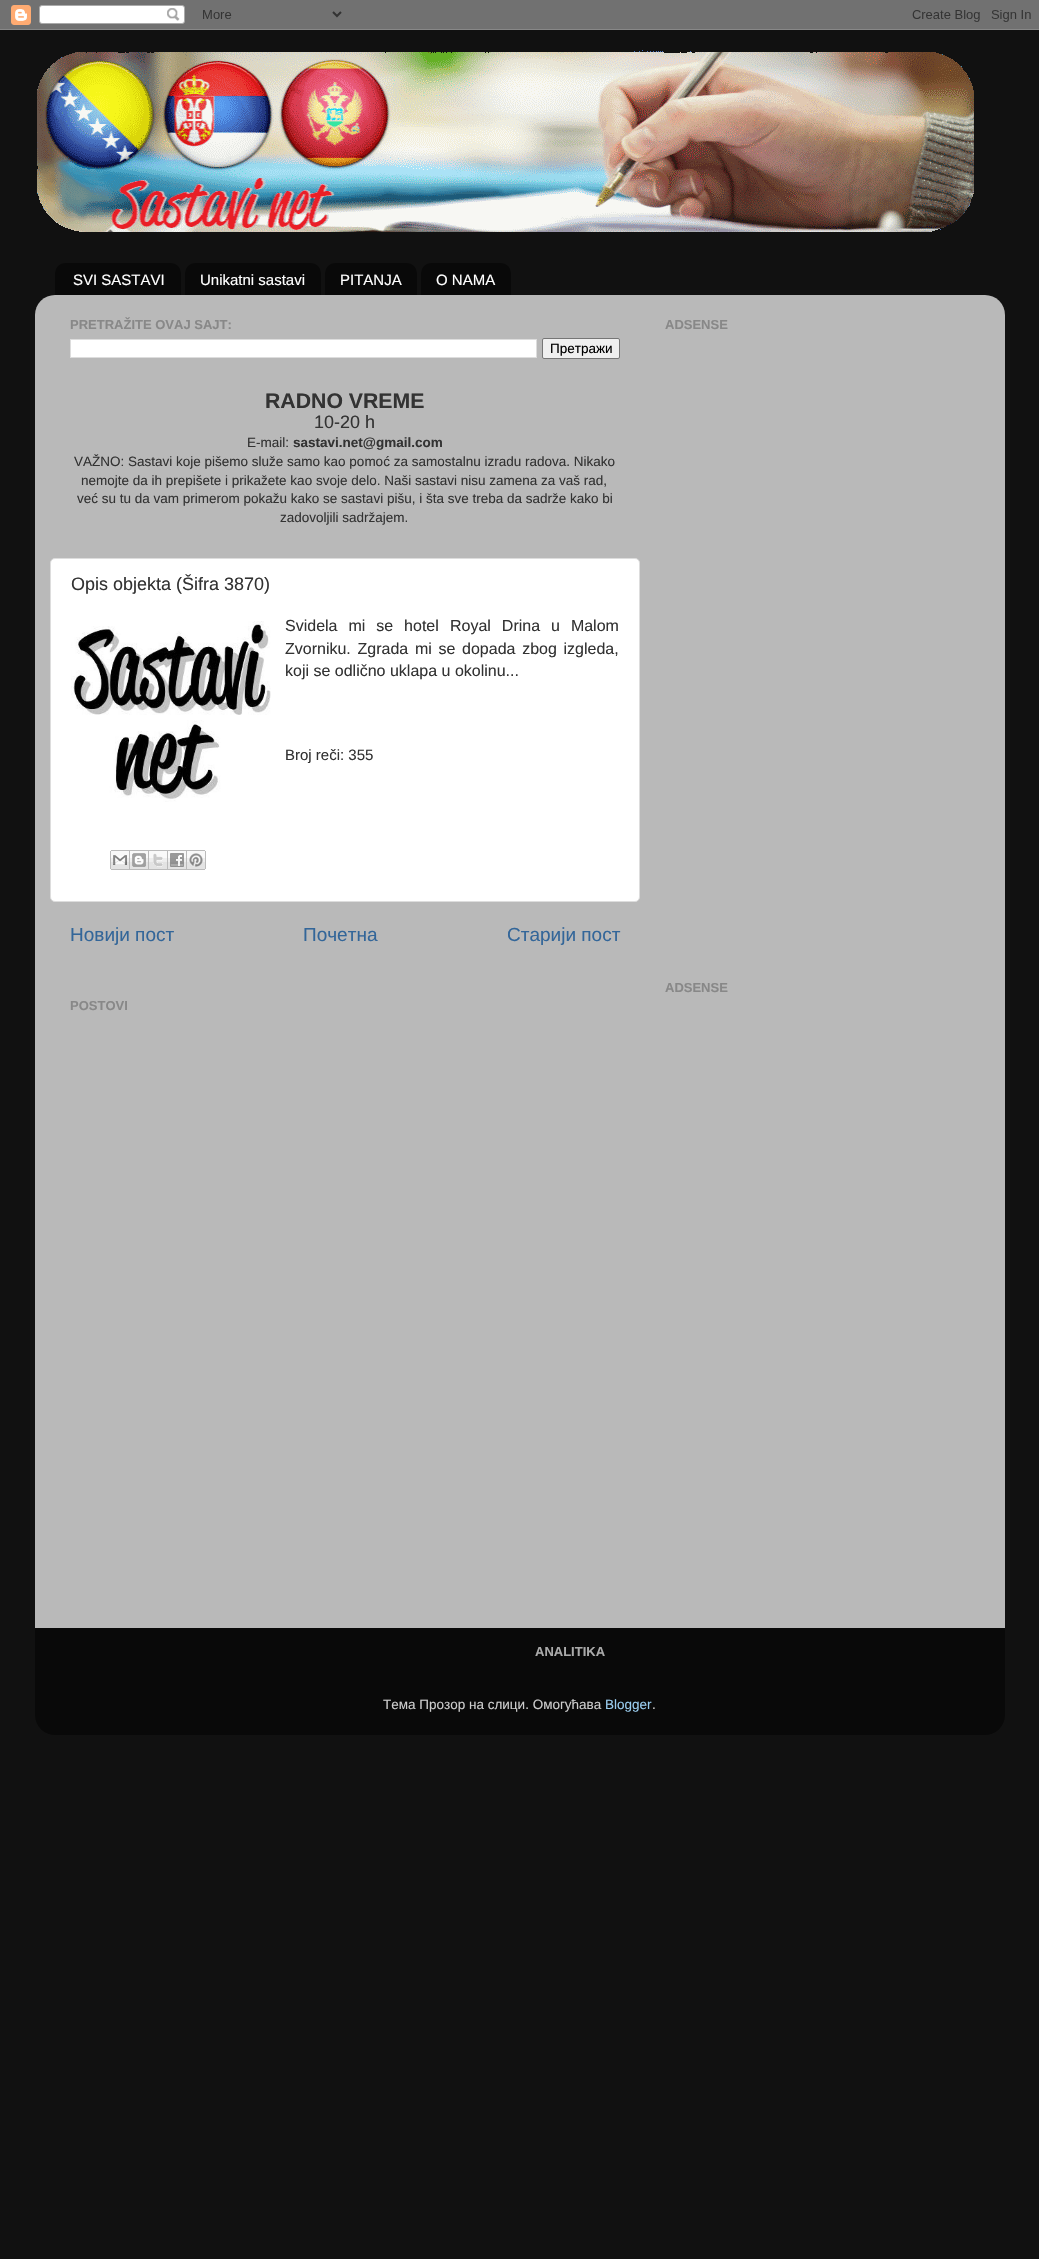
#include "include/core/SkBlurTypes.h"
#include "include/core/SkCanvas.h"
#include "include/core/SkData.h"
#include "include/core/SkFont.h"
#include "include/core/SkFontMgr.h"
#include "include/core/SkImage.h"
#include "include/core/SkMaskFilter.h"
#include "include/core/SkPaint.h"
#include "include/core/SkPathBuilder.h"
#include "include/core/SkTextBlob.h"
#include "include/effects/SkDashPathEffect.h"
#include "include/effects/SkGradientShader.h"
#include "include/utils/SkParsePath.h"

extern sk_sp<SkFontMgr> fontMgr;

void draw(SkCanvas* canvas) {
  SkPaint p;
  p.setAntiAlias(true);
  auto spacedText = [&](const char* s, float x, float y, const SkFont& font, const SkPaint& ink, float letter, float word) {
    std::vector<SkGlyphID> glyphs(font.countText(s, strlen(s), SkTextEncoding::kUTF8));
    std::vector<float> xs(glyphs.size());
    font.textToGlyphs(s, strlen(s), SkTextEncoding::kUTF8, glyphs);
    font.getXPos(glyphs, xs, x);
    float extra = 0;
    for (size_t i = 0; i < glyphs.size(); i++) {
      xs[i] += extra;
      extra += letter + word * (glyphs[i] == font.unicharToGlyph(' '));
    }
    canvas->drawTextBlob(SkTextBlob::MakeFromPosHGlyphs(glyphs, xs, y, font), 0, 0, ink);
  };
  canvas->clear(SkColorSetRGB(17, 17, 17));
  canvas->drawImageRect(SkImages::DeferredFromEncodedData(SkData::MakeFromFileName("images/1.png")), SkRect::MakeLTRB(0, 0, 1039, 30), SkSamplingOptions());
  canvas->drawImageRect(SkImages::DeferredFromEncodedData(SkData::MakeFromFileName("images/2.png")), SkRect::MakeLTRB(37, 50, 974, 232), SkSamplingOptions());
  canvas->drawImageRect(SkImages::DeferredFromEncodedData(SkData::MakeFromFileName("images/3.png")), SkRect::MakeLTRB(55, 263, 181, 295), SkSamplingOptions());
  canvas->drawImageRect(SkImages::DeferredFromEncodedData(SkData::MakeFromFileName("images/4.png")), SkRect::MakeLTRB(185, 263, 321, 295), SkSamplingOptions());
  canvas->drawImageRect(SkImages::DeferredFromEncodedData(SkData::MakeFromFileName("images/5.png")), SkRect::MakeLTRB(325, 263, 417, 295), SkSamplingOptions());
  canvas->drawImageRect(SkImages::DeferredFromEncodedData(SkData::MakeFromFileName("images/6.png")), SkRect::MakeLTRB(421, 263, 511, 295), SkSamplingOptions());
  canvas->drawImageRect(SkImages::DeferredFromEncodedData(SkData::MakeFromFileName("images/7.png")), SkRect::MakeLTRB(35, 295, 1005, 1628), SkSamplingOptions());
  p.setColor(SK_ColorWHITE);
  canvas->drawRect(SkRect::MakeLTRB(70.5f, 339.5f, 536.5f, 357.5f), p);
  p.setStyle(SkPaint::kStroke_Style);
  p.setStrokeWidth(1);
  p.setColor(SkColorSetRGB(221, 221, 221));
  canvas->drawRect(SkRect::MakeLTRB(70.5f, 339.5f, 536.5f, 357.5f), p);
  p.setStyle(SkPaint::kFill_Style);
  p.setColor(SkColorSetRGB(239, 239, 239));
  canvas->drawRoundRect(SkRect::MakeLTRB(542.5f, 338.5f, 619.5f, 358.5f), 1.5f, 1.5f, p);
  p.setStyle(SkPaint::kStroke_Style);
  p.setColor(SkColorSetRGB(118, 118, 118));
  canvas->drawRoundRect(SkRect::MakeLTRB(542.5f, 338.5f, 619.5f, 358.5f), 1.5f, 1.5f, p);
  p.setStyle(SkPaint::kFill_Style);
  p.setColor(SK_ColorWHITE);
  canvas->drawRoundRect(SkRect::MakeLTRB(50.5f, 558.5f, 639.5f, 901.5f), 4.5f, 4.5f, p);
  p.setStyle(SkPaint::kStroke_Style);
  p.setColor(SkColorSetRGB(221, 221, 221));
  canvas->drawRoundRect(SkRect::MakeLTRB(50.5f, 558.5f, 639.5f, 901.5f), 4.5f, 4.5f, p);
  canvas->drawImageRect(SkImages::DeferredFromEncodedData(SkData::MakeFromFileName("images/8.png")), SkRect::MakeLTRB(71, 621, 271, 802), SkSamplingOptions());
  canvas->drawImageRect(SkImages::DeferredFromEncodedData(SkData::MakeFromFileName("images/9.png")), SkRect::MakeLTRB(110, 850, 130, 870), SkSamplingOptions());
  canvas->drawImageRect(SkImages::DeferredFromEncodedData(SkData::MakeFromFileName("images/10.png")), SkRect::MakeLTRB(130, 850, 149, 870), SkSamplingOptions());
  canvas->drawImageRect(SkImages::DeferredFromEncodedData(SkData::MakeFromFileName("images/11.png")), SkRect::MakeLTRB(149, 850, 168, 870), SkSamplingOptions());
  canvas->drawImageRect(SkImages::DeferredFromEncodedData(SkData::MakeFromFileName("images/12.png")), SkRect::MakeLTRB(168, 850, 187, 870), SkSamplingOptions());
  canvas->drawImageRect(SkImages::DeferredFromEncodedData(SkData::MakeFromFileName("images/13.png")), SkRect::MakeLTRB(187, 850, 206, 870), SkSamplingOptions());
  canvas->drawImageRect(SkImages::DeferredFromEncodedData(SkData::MakeFromFileName("images/14.png")), SkRect::MakeLTRB(35, 1628, 1005, 1735), SkSamplingOptions());
  SkFont font1(fontMgr->matchFamilyStyle("Liberation Sans", SkFontStyle::Normal()), 15);
  font1.setSubpixel(true);
  p.setStyle(SkPaint::kFill_Style);
  p.setColor(SK_ColorWHITE);
  canvas->drawString("SVI SASTAVI", 73, 285, font1, p);
  canvas->drawString("Unikatni sastavi", 200, 285, font1, p);
  canvas->drawString("PITANJA", 340, 285, font1, p);
  canvas->drawString("O NAMA", 436, 285, font1, p);
  SkFont font2(fontMgr->matchFamilyStyle("Liberation Sans", SkFontStyle::Bold()), 13);
  font2.setSubpixel(true);
  p.setColor(SkColorSetRGB(136, 136, 136));
  canvas->drawString("PRETRAŽITE OVAJ SAJT:", 70, 329, font2, p);
  SkFont font3(fontMgr->matchFamilyStyle("Liberation Sans", SkFontStyle::Normal()), 13.5f);
  font3.setSubpixel(true);
  p.setColor(SK_ColorBLACK);
  canvas->drawString("Претражи", 550, 353, font3, p);
  SkFont font4(fontMgr->matchFamilyStyle("Liberation Sans", SkFontStyle::Bold()), 21.25f);
  font4.setSubpixel(true);
  p.setColor(SkColorSetRGB(51, 51, 51));
  canvas->drawString("RADNO VREME", 265, 408, font4, p);
  SkFont font5(fontMgr->matchFamilyStyle("Liberation Sans", SkFontStyle::Normal()), 18);
  font5.setSubpixel(true);
  canvas->drawString("10-20 h", 314, 428, font5, p);
  canvas->drawString("E-mail:", 247, 447, font3, p);
  SkFont font6(fontMgr->matchFamilyStyle("Liberation Sans", SkFontStyle::Bold()), 13.5f);
  font6.setSubpixel(true);
  canvas->drawString("sastavi.net@gmail.com", 293, 447, font6, p);
  canvas->drawString("VAŽNO: Sastavi koje pišemo služe samo kao pomoć za samostalnu izradu radova. Nikako", 74, 466, font3, p);
  canvas->drawString("nemojte da ih prepišete i prikažete kao svoje delo. Naši sastavi nisu zamena za vaš rad,", 81, 485, font3, p);
  canvas->drawString("već su tu da vam primerom pokažu kako se sastavi pišu, i šta sve treba da sadrže kako bi", 77, 503, font3, p);
  canvas->drawString("zadovoljili sadržajem.", 280, 522, font3, p);
  canvas->drawString("Opis objekta (Šifra 3870)", 71, 590, font5, p);
  SkFont font7(fontMgr->matchFamilyStyle("Liberation Sans", SkFontStyle::Normal()), 16);
  font7.setSubpixel(true);
  spacedText("Svidela mi se hotel", 285, 631, font7, p, 0, 6.5f);
  spacedText("Royal Drina u Malom", 450, 631, font7, p, 0, 6.5f);
  spacedText("Zvorniku. Zgrada mi se dopada zbog izgleda,", 285, 654, font7, p, 0, 2.25f);
  canvas->drawString("koji se odlično uklapa u okolinu...", 285, 676, font7, p);
  canvas->drawString("Broj reči: 355", 285, 760, font1, p);
  SkFont font8(fontMgr->matchFamilyStyle("Liberation Sans", SkFontStyle::Normal()), 19);
  font8.setSubpixel(true);
  p.setColor(SkColorSetRGB(51, 102, 153));
  canvas->drawString("Новији пост", 70, 941, font8, p);
  canvas->drawString("Почетна", 303, 941, font8, p);
  canvas->drawString("Старији пост", 507, 941, font8, p);
  p.setColor(SkColorSetRGB(136, 136, 136));
  canvas->drawString("POSTOVI", 70, 1010, font2, p);
  canvas->drawString("ADSENSE", 665, 329, font2, p);
  canvas->drawString("ADSENSE", 665, 992, font2, p);
  p.setColor(SkColorSetRGB(170, 170, 170));
  canvas->drawString("ANALITIKA", 535, 1656, font2, p);
  p.setColor(SkColorSetRGB(204, 204, 204));
  canvas->drawString("Тема Прозор на слици. Омогућава", 383, 1709, font3, p);
  p.setColor(SkColorSetRGB(153, 204, 238));
  canvas->drawString("Blogger", 605, 1709, font3, p);
  p.setColor(SkColorSetRGB(204, 204, 204));
  canvas->drawString(".", 652, 1709, font3, p);
}
